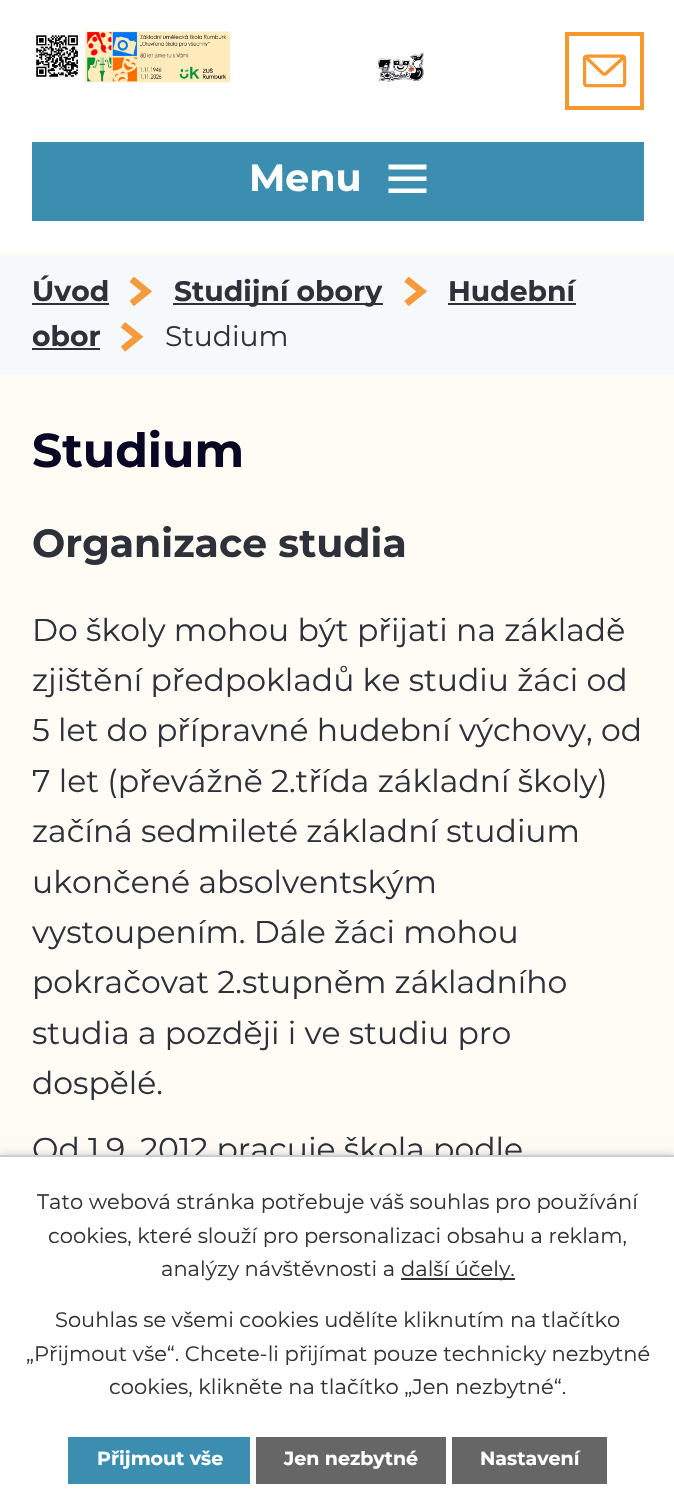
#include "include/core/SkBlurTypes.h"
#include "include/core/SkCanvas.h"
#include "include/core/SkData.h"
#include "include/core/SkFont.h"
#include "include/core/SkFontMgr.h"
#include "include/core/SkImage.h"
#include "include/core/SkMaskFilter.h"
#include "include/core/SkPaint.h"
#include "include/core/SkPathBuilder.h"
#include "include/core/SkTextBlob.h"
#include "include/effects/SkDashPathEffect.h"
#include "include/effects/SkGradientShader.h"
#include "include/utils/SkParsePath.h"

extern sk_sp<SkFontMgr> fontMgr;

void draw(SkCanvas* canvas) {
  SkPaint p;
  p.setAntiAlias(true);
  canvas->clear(SkColorSetRGB(254, 252, 245));
  p.setColor(SK_ColorWHITE);
  canvas->drawRect(SkRect::MakeLTRB(0, 0, 674, 252), p);
  canvas->drawImageRect(SkImages::DeferredFromEncodedData(SkData::MakeFromFileName("images/1.png")), SkRect::MakeLTRB(36, 31, 424, 83), SkSamplingOptions());
  p.setStyle(SkPaint::kStroke_Style);
  p.setStrokeWidth(4);
  p.setColor(SkColorSetRGB(247, 152, 46));
  canvas->drawRect(SkRect::MakeLTRB(567, 34, 642, 108), p);
  canvas->drawImageRect(SkImages::DeferredFromEncodedData(SkData::MakeFromFileName("images/2.png")), SkRect::MakeLTRB(583, 54, 627, 88), SkSamplingOptions());
  p.setStyle(SkPaint::kFill_Style);
  p.setColor(SkColorSetRGB(59, 142, 176));
  canvas->drawRect(SkRect::MakeLTRB(32, 142, 644, 221), p);
  p.setColor(SK_ColorWHITE);
  canvas->drawPath(SkPathBuilder().moveTo(388.5f, 193).lineTo(388.5f, 188.5f).lineTo(426.5f, 188.5f).lineTo(426.5f, 193).close().moveTo(388.5f, 164.5f).lineTo(426.5f, 164.5f).lineTo(426.5f, 169.5f).lineTo(388.5f, 169.5f).close().moveTo(388.5f, 181).lineTo(388.5f, 176.5f).lineTo(426.5f, 176.5f).lineTo(426.5f, 181).close().detach(), p);
  p.setColor(SkColorSetRGB(245, 249, 251));
  canvas->drawRect(SkRect::MakeLTRB(0, 256, 674, 375), p);
  p.setColor(SkColorSetRGB(46, 49, 57));
  canvas->drawRect(SkRect::MakeLTRB(32, 303, 109, 305), p);
  canvas->drawImageRect(SkImages::DeferredFromEncodedData(SkData::MakeFromFileName("images/3.png")), SkRect::MakeLTRB(130, 277, 152, 306), SkSamplingOptions());
  canvas->drawRect(SkRect::MakeLTRB(173, 303, 383, 305), p);
  canvas->drawImageRect(SkImages::DeferredFromEncodedData(SkData::MakeFromFileName("images/4.png")), SkRect::MakeLTRB(404, 277, 427, 306), SkSamplingOptions());
  canvas->drawRect(SkRect::MakeLTRB(448, 303, 576, 305), p);
  canvas->drawRect(SkRect::MakeLTRB(32, 348, 100, 350), p);
  canvas->drawImageRect(SkImages::DeferredFromEncodedData(SkData::MakeFromFileName("images/5.png")), SkRect::MakeLTRB(121, 322, 144, 352), SkSamplingOptions());
  p.setColor(SkColorSetARGB(51, 0, 0, 0));
  p.setMaskFilter(SkMaskFilter::MakeBlur(kNormal_SkBlurStyle, 4.5f));
  canvas->drawRect(SkRect::MakeLTRB(0, 1155, 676, 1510), p);
  p.setMaskFilter(nullptr);
  SkFont font1(fontMgr->matchFamilyStyle("Montserrat", SkFontStyle::Bold()), 38);
  font1.setSubpixel(true);
  p.setColor(SK_ColorWHITE);
  canvas->drawString("Menu", 249, 191, font1, p);
  SkFont font2(fontMgr->matchFamilyStyle("Montserrat", SkFontStyle::Bold()), 28.25f);
  font2.setSubpixel(true);
  p.setColor(SkColorSetRGB(46, 49, 57));
  canvas->drawString("Úvod", 32, 301, font2, p);
  canvas->drawString("Studijní obory", 174, 301, font2, p);
  canvas->drawString("Hudební", 448, 301, font2, p);
  canvas->drawString("obor", 32, 346, font2, p);
  SkFont font3(fontMgr->matchFamilyStyle("Montserrat", SkFontStyle::Normal()), 28.25f);
  font3.setSubpixel(true);
  canvas->drawString("Studium", 165, 346, font3, p);
  SkFont font4(fontMgr->matchFamilyStyle("Montserrat", SkFontStyle::Bold()), 47.25f);
  font4.setSubpixel(true);
  p.setColor(SkColorSetRGB(10, 7, 36));
  canvas->drawString("Studium", 32, 467, font4, p);
  SkFont font5(fontMgr->matchFamilyStyle("Montserrat", SkFontStyle::Bold()), 39.4f);
  font5.setSubpixel(true);
  p.setColor(SkColorSetRGB(46, 49, 57));
  canvas->drawString("Organizace studia", 32, 557, font5, p);
  SkFont font6(fontMgr->matchFamilyStyle("Montserrat", SkFontStyle::Normal()), 31.5f);
  font6.setSubpixel(true);
  canvas->drawString("Do školy mohou být přijati na základě", 32, 641, font6, p);
  canvas->drawString("zjištění předpokladů ke studiu žáci od", 32, 691, font6, p);
  canvas->drawString("5 let do přípravné hudební výchovy, od", 32, 741, font6, p);
  canvas->drawString("7 let (převážně 2.třída základní školy)", 32, 792, font6, p);
  canvas->drawString("začíná sedmileté základní studium", 32, 842, font6, p);
  canvas->drawString("ukončené absolventským", 32, 893, font6, p);
  canvas->drawString("vystoupením. Dále žáci mohou", 32, 943, font6, p);
  canvas->drawString("pokračovat 2.stupněm základního", 32, 993, font6, p);
  canvas->drawString("studia a později i ve studiu pro", 32, 1044, font6, p);
  canvas->drawString("dospělé.", 32, 1094, font6, p);
  canvas->drawString("Od 1.9. 2012 pracuje škola podle", 32, 1160, font6, p);
  p.setColor(SK_ColorWHITE);
  canvas->drawRect(SkRect::MakeLTRB(0, 1157, 674, 1509), p);
  p.setColor(SkColorSetRGB(204, 204, 204));
  canvas->drawRect(SkRect::MakeLTRB(0, 1155, 674, 1157), p);
  SkFont font7(fontMgr->matchFamilyStyle("Montserrat", SkFontStyle::Normal()), 21);
  font7.setSubpixel(true);
  p.setColor(SkColorSetRGB(51, 51, 51));
  canvas->drawString("Tato webová stránka potřebuje váš souhlas pro používání", 37, 1209, font7, p);
  canvas->drawString("cookies, které slouží pro personalizaci obsahu a reklam,", 48, 1243, font7, p);
  canvas->drawString("analýzy návštěvnosti a", 161, 1276, font7, p);
  canvas->drawRect(SkRect::MakeLTRB(401, 1278, 515, 1280), p);
  canvas->drawString("další účely.", 401, 1276, font7, p);
  canvas->drawString("Souhlas se všemi cookies udělíte kliknutím na tlačítko", 55, 1327, font7, p);
  canvas->drawString("„Přijmout vše“. Chcete-li přijímat pouze technicky nezbytné", 26, 1361, font7, p);
  canvas->drawString("cookies, klikněte na tlačítko „Jen nezbytné“.", 109, 1394, font7, p);
  p.setColor(SkColorSetRGB(59, 142, 176));
  canvas->drawRect(SkRect::MakeLTRB(68, 1437, 250, 1484), p);
  SkFont font8(fontMgr->matchFamilyStyle("Montserrat", SkFontStyle::Bold()), 19);
  font8.setSubpixel(true);
  p.setColor(SK_ColorWHITE);
  canvas->drawString("Přijmout vše", 97, 1465, font8, p);
  p.setColor(SkColorSetRGB(102, 102, 102));
  canvas->drawRect(SkRect::MakeLTRB(256, 1437, 446, 1484), p);
  p.setColor(SK_ColorWHITE);
  canvas->drawString("Jen nezbytné", 284, 1465, font8, p);
  p.setColor(SkColorSetRGB(102, 102, 102));
  canvas->drawRect(SkRect::MakeLTRB(452, 1437, 607, 1484), p);
  p.setColor(SK_ColorWHITE);
  canvas->drawString("Nastavení", 480, 1465, font8, p);
}
